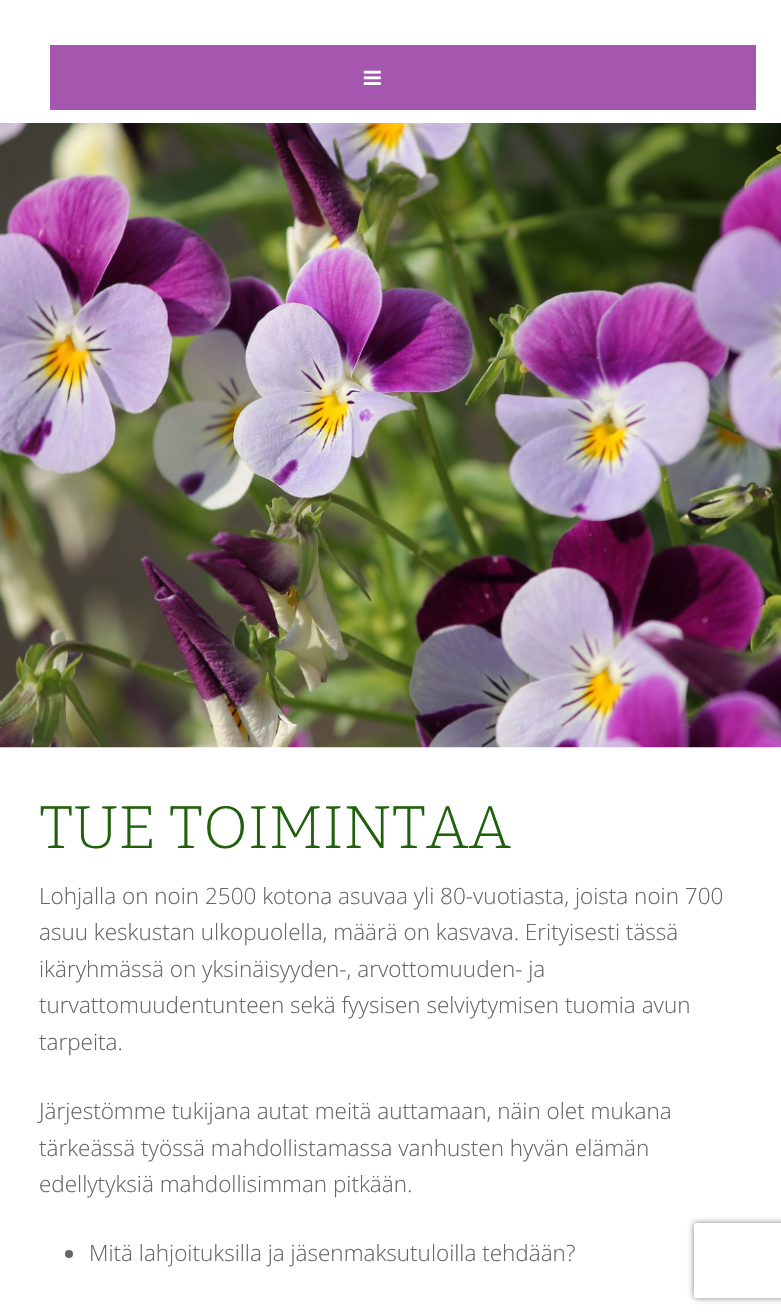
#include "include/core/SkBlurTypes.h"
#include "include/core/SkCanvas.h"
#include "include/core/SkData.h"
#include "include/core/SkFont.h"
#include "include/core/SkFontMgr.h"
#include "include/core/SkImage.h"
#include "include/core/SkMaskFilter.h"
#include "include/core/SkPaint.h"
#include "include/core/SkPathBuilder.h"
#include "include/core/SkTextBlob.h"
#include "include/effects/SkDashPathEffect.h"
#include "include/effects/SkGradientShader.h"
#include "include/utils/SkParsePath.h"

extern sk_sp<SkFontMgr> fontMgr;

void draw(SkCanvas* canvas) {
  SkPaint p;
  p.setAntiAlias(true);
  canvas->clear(SK_ColorWHITE);
  p.setColor(SkColorSetRGB(165, 86, 175));
  canvas->drawRect(SkRect::MakeLTRB(50, 45, 756, 110), p);
  canvas->drawImageRect(SkImages::DeferredFromEncodedData(SkData::MakeFromFileName("images/1.png")), SkRect::MakeLTRB(363, 70, 381, 85), SkSamplingOptions());
  canvas->drawImageRect(SkImages::DeferredFromEncodedData(SkData::MakeFromFileName("images/2.png")), SkRect::MakeLTRB(0, 123, 781, 748), SkSamplingOptions());
  p.setColor(SkColorSetRGB(102, 102, 102));
  canvas->drawCircle(69, 1254, 4, p);
  canvas->save();
  canvas->clipPath(SkPathBuilder(SkPathFillType::kEvenOdd).moveTo(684, 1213).lineTo(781, 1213).lineTo(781, 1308).lineTo(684, 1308).close().moveTo(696.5f, 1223).lineTo(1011.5f, 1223).cubicTo(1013, 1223, 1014, 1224, 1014, 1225.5f).lineTo(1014, 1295.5f).cubicTo(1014, 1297, 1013, 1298, 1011.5f, 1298).lineTo(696.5f, 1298).cubicTo(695, 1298, 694, 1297, 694, 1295.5f).lineTo(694, 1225.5f).cubicTo(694, 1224, 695, 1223, 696.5f, 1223).close().detach(), true);
  p.setColor(SkColorSetRGB(128, 128, 128));
  p.setMaskFilter(SkMaskFilter::MakeBlur(kNormal_SkBlurStyle, 3));
  canvas->drawRoundRect(SkRect::MakeLTRB(694, 1223, 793, 1298), 2.5f, 2.5f, p);
  p.setMaskFilter(nullptr);
  canvas->restore();
  SkFont font1(fontMgr->matchFamilyStyle("Bitter", SkFontStyle(300, SkFontStyle::kNormal_Width, SkFontStyle::kUpright_Slant)), 60);
  font1.setSubpixel(true);
  p.setColor(SkColorSetRGB(33, 96, 12));
  canvas->drawString("TUE TOIMINTAA", 39, 848, font1, p);
  SkFont font2(fontMgr->matchFamilyStyle("Open Sans", SkFontStyle(300, SkFontStyle::kNormal_Width, SkFontStyle::kUpright_Slant)), 22.5f);
  font2.setSubpixel(true);
  p.setColor(SkColorSetRGB(102, 102, 102));
  canvas->drawString("Lohjalla on noin 2500 kotona asuvaa yli 80-vuotiasta, joista noin 700", 39, 904, font2, p);
  canvas->drawString("asuu keskustan ulkopuolella, määrä on kasvava. Erityisesti tässä", 39, 940, font2, p);
  canvas->drawString("ikäryhmässä on yksinäisyyden-, arvottomuuden- ja", 39, 977, font2, p);
  canvas->drawString("turvattomuudentunteen sekä fyysisen selviytymisen tuomia avun", 39, 1013, font2, p);
  canvas->drawString("tarpeita.", 39, 1050, font2, p);
  canvas->drawString("Järjestömme tukijana autat meitä auttamaan, näin olet mukana", 39, 1119, font2, p);
  canvas->drawString("tärkeässä työssä mahdollistamassa vanhusten hyvän elämän", 39, 1156, font2, p);
  canvas->drawString("edellytyksiä mahdollisimman pitkään.", 39, 1192, font2, p);
  canvas->drawString("Mitä lahjoituksilla ja jäsenmaksutuloilla tehdään?", 89, 1261, font2, p);
}
